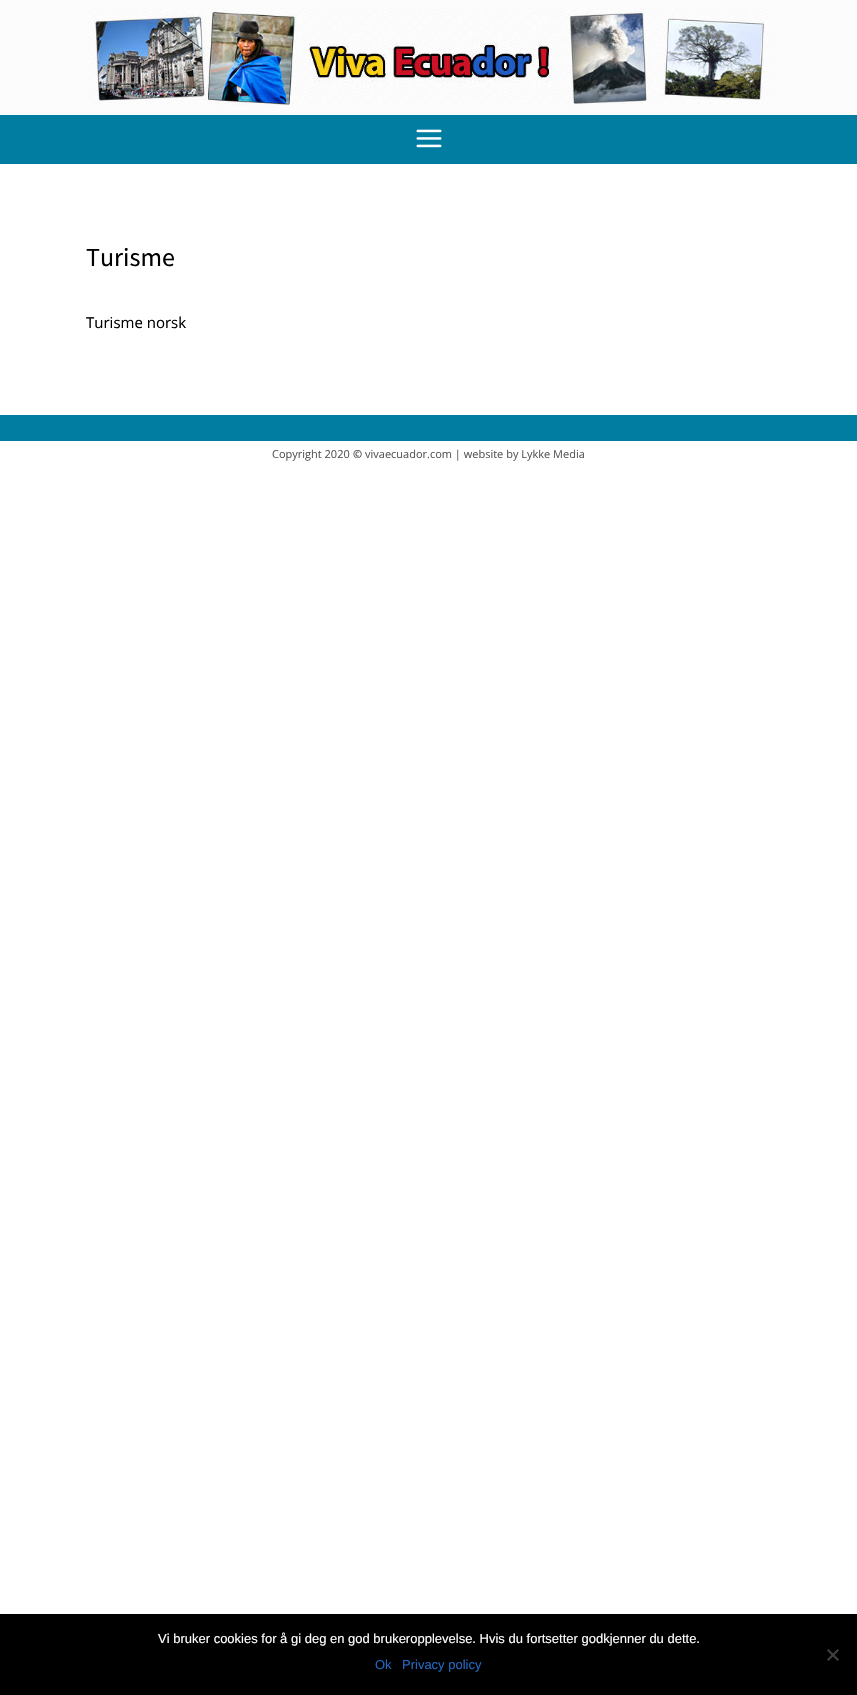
#include "include/core/SkBlurTypes.h"
#include "include/core/SkCanvas.h"
#include "include/core/SkData.h"
#include "include/core/SkFont.h"
#include "include/core/SkFontMgr.h"
#include "include/core/SkImage.h"
#include "include/core/SkMaskFilter.h"
#include "include/core/SkPaint.h"
#include "include/core/SkPathBuilder.h"
#include "include/core/SkTextBlob.h"
#include "include/effects/SkDashPathEffect.h"
#include "include/effects/SkGradientShader.h"
#include "include/utils/SkParsePath.h"

extern sk_sp<SkFontMgr> fontMgr;

void draw(SkCanvas* canvas) {
  SkPaint p;
  p.setAntiAlias(true);
  canvas->clear(SK_ColorWHITE);
  p.setColor(SkColorSetRGB(252, 252, 252));
  canvas->drawRect(SkRect::MakeLTRB(0, 0, 857, 115), p);
  canvas->drawImageRect(SkImages::DeferredFromEncodedData(SkData::MakeFromFileName("images/1.png")), SkRect::MakeLTRB(86, 8, 771, 106), SkSamplingOptions());
  p.setColor(SkColorSetRGB(1, 125, 161));
  canvas->drawRect(SkRect::MakeLTRB(0, 115, 857, 164), p);
  canvas->drawImageRect(SkImages::DeferredFromEncodedData(SkData::MakeFromFileName("images/2.png")), SkRect::MakeLTRB(416, 129, 442, 148), SkSamplingOptions());
  canvas->drawRect(SkRect::MakeLTRB(0, 415, 857, 441), p);
  p.setColor(SK_ColorBLACK);
  canvas->drawRect(SkRect::MakeLTRB(0, 1614, 857, 1695), p);
  p.setColor(SkColorSetRGB(64, 64, 64));
  canvas->drawPath(SkPathBuilder().moveTo(837.5f, 1649).lineTo(839, 1650.5f).lineTo(828.5f, 1661).lineTo(827, 1659.5f).close().detach(), p);
  canvas->drawPath(SkPathBuilder().moveTo(827, 1650.5f).lineTo(828.5f, 1649).lineTo(839, 1659.5f).lineTo(837.5f, 1661).close().detach(), p);
  SkFont font1(fontMgr->matchFamilyStyle("Source Sans Pro", SkFontStyle::Normal()), 26);
  font1.setSubpixel(true);
  p.setColor(SK_ColorBLACK);
  canvas->drawString("Turisme", 86, 266, font1, p);
  SkFont font2(fontMgr->matchFamilyStyle("Open Sans", SkFontStyle::Normal()), 15);
  font2.setSubpixel(true);
  canvas->drawString("Turisme norsk", 86, 328, font2, p);
  SkFont font3(fontMgr->matchFamilyStyle("Open Sans", SkFontStyle::Normal()), 11);
  font3.setSubpixel(true);
  p.setColor(SkColorSetRGB(86, 86, 86));
  canvas->drawString("Copyright 2020", 272, 458, font3, p);
  SkFont font4(fontMgr->matchFamilyStyle("Open Sans", SkFontStyle::Bold()), 11);
  font4.setSubpixel(true);
  canvas->drawString("©", 353, 458, font4, p);
  canvas->drawString("vivaecuador.com | website by Lykke Media", 365, 458, font3, p);
  SkFont font5(fontMgr->matchFamilyStyle("Liberation Sans", SkFontStyle::Normal()), 13);
  font5.setSubpixel(true);
  p.setColor(SK_ColorWHITE);
  canvas->drawString("Vi bruker cookies for å gi deg en god brukeropplevelse. Hvis du fortsetter godkjenner du dette.", 158, 1643, font5, p);
  p.setColor(SkColorSetRGB(36, 104, 193));
  canvas->drawString("Ok", 375, 1669, font5, p);
  canvas->drawString("Privacy policy", 402, 1669, font5, p);
}
